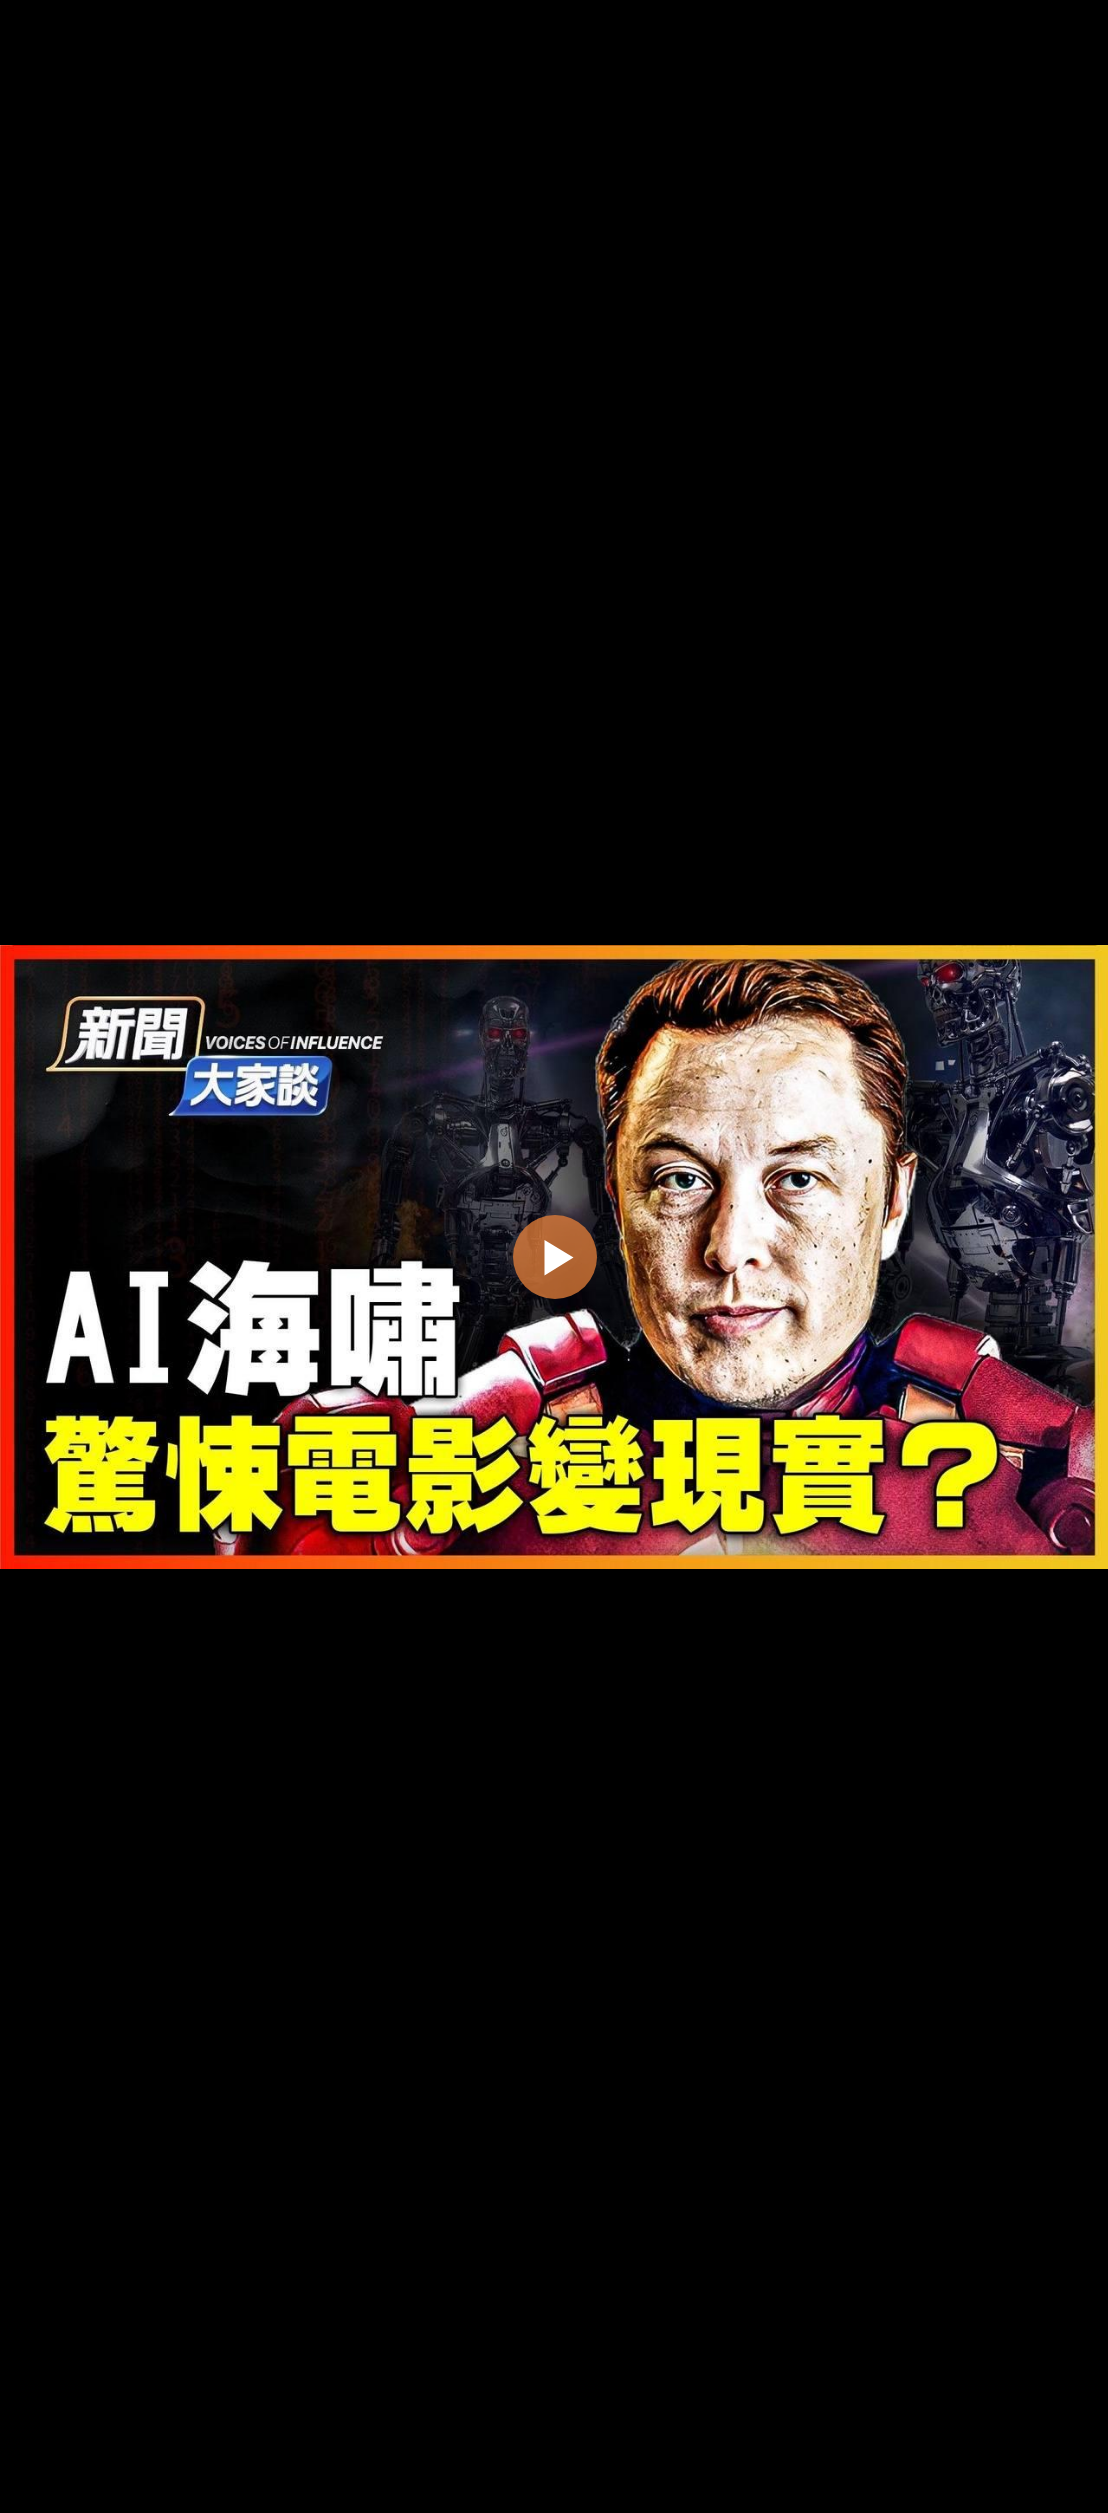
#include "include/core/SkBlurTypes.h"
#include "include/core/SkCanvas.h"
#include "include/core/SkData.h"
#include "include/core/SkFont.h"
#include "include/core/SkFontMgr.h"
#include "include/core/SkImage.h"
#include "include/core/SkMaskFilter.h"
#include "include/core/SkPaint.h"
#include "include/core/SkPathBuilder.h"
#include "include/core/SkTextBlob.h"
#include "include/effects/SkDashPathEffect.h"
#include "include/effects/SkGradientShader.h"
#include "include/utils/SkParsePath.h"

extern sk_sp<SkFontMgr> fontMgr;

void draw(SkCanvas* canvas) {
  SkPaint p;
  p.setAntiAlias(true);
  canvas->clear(SK_ColorBLACK);
  canvas->drawImageRect(SkImages::DeferredFromEncodedData(SkData::MakeFromFileName("images/1.png")), SkRect::MakeLTRB(0, 945, 1108, 1569), SkSamplingOptions());
  p.setColor(SkColorSetARGB(191, 229, 127, 56));
  canvas->drawCircle(555, 1257, 42, p);
  p.setColor(SK_ColorWHITE);
  canvas->drawPath(SkPathBuilder().moveTo(544.5f, 1240).lineTo(544.5f, 1275.5f).lineTo(573.5f, 1257.5f).close().detach(), p);
}
